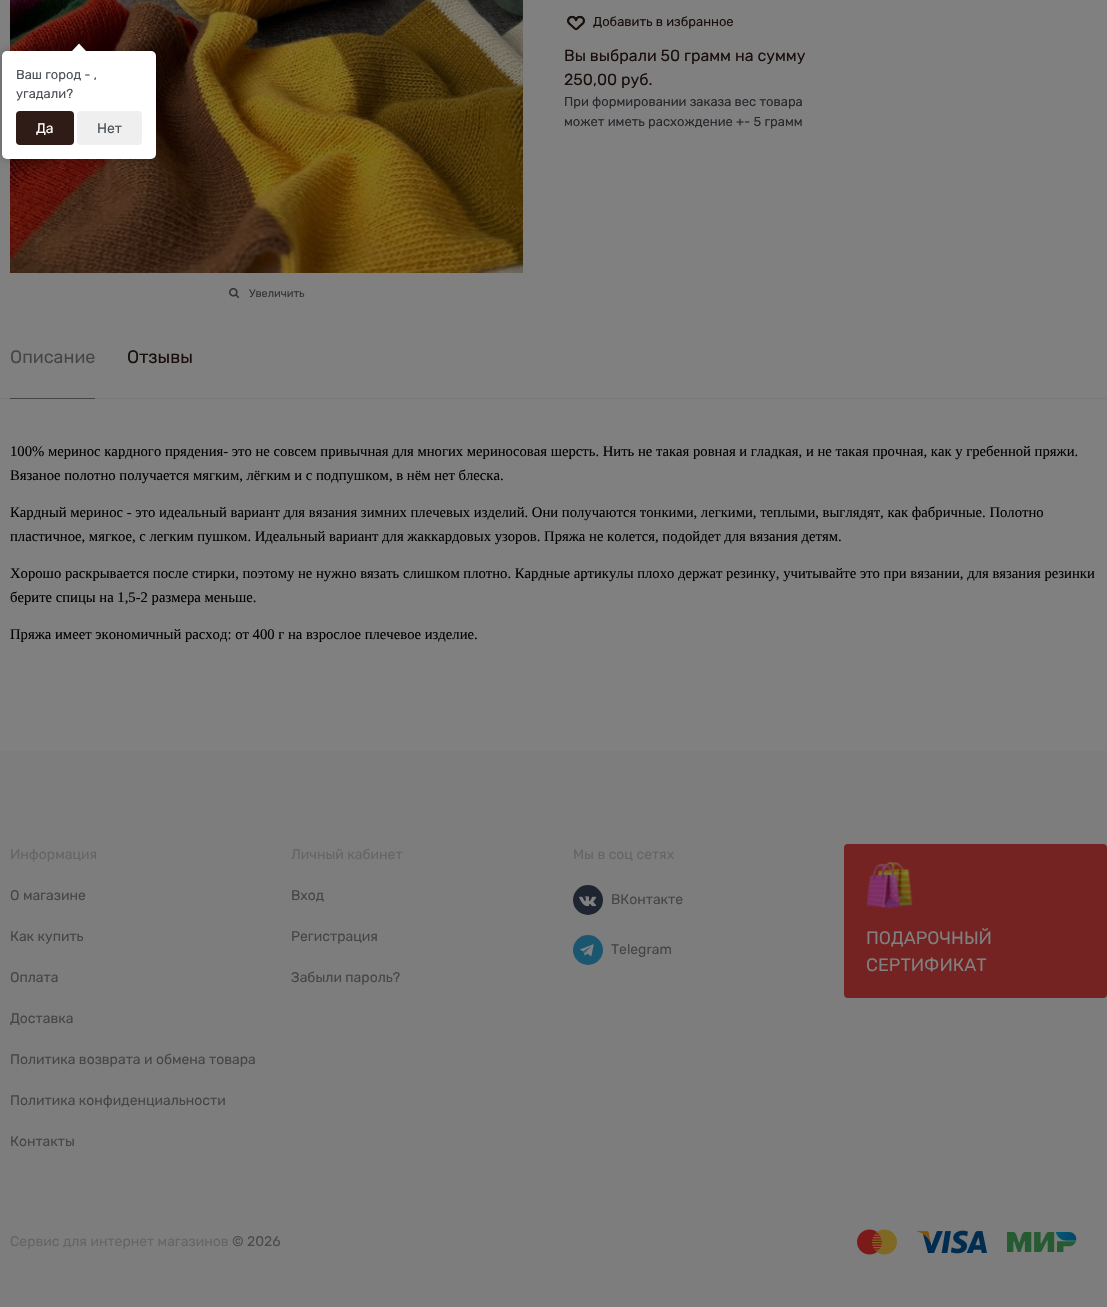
#include "include/core/SkBlurTypes.h"
#include "include/core/SkCanvas.h"
#include "include/core/SkData.h"
#include "include/core/SkFont.h"
#include "include/core/SkFontMgr.h"
#include "include/core/SkImage.h"
#include "include/core/SkMaskFilter.h"
#include "include/core/SkPaint.h"
#include "include/core/SkPathBuilder.h"
#include "include/core/SkTextBlob.h"
#include "include/effects/SkDashPathEffect.h"
#include "include/effects/SkGradientShader.h"
#include "include/utils/SkParsePath.h"

extern sk_sp<SkFontMgr> fontMgr;

void draw(SkCanvas* canvas) {
  SkPaint p;
  p.setAntiAlias(true);
  canvas->clear(SkColorSetRGB(128, 128, 128));
  canvas->drawImageRect(SkImages::DeferredFromEncodedData(SkData::MakeFromFileName("images/1.png")), SkRect::MakeLTRB(567, 15, 585, 31), SkSamplingOptions());
  canvas->drawImageRect(SkImages::DeferredFromEncodedData(SkData::MakeFromFileName("images/2.png")), SkRect::MakeLTRB(10, 0, 523, 273), SkSamplingOptions());
  canvas->drawImageRect(SkImages::DeferredFromEncodedData(SkData::MakeFromFileName("images/3.png")), SkRect::MakeLTRB(229, 287, 240, 299), SkSamplingOptions());
  p.setColor(SkColorSetRGB(120, 120, 122));
  canvas->drawRect(SkRect::MakeLTRB(0, 398, 1107, 399), p);
  p.setColor(SkColorSetRGB(69, 69, 72));
  canvas->drawRect(SkRect::MakeLTRB(10, 398, 95, 399), p);
  p.setColor(SkColorSetRGB(125, 125, 125));
  canvas->drawRect(SkRect::MakeLTRB(0, 751, 1107, 1307), p);
  p.setColor(SkColorSetRGB(30, 37, 48));
  canvas->drawCircle(588, 900, 15, p);
  canvas->drawImageRect(SkImages::DeferredFromEncodedData(SkData::MakeFromFileName("images/4.png")), SkRect::MakeLTRB(579, 896, 597, 907), SkSamplingOptions());
  p.setColor(SkColorSetRGB(27, 86, 113));
  canvas->drawCircle(588, 950, 15, p);
  canvas->drawImageRect(SkImages::DeferredFromEncodedData(SkData::MakeFromFileName("images/5.png")), SkRect::MakeLTRB(580, 944, 594, 957), SkSamplingOptions());
  p.setColor(SkColorSetRGB(116, 34, 34));
  canvas->drawRoundRect(SkRect::MakeLTRB(844, 844, 1107, 998), 4, 4, p);
  canvas->drawImageRect(SkImages::DeferredFromEncodedData(SkData::MakeFromFileName("images/6.png")), SkRect::MakeLTRB(866, 862, 913, 908), SkSamplingOptions());
  canvas->drawImageRect(SkImages::DeferredFromEncodedData(SkData::MakeFromFileName("images/7.png")), SkRect::MakeLTRB(857, 1229, 897, 1255), SkSamplingOptions());
  canvas->drawImageRect(SkImages::DeferredFromEncodedData(SkData::MakeFromFileName("images/8.png")), SkRect::MakeLTRB(917, 1230, 987, 1254), SkSamplingOptions());
  canvas->drawImageRect(SkImages::DeferredFromEncodedData(SkData::MakeFromFileName("images/9.png")), SkRect::MakeLTRB(1007, 1232, 1077, 1252), SkSamplingOptions());
  p.setColor(SkColorSetARGB(64, 0, 0, 0));
  p.setMaskFilter(SkMaskFilter::MakeBlur(kNormal_SkBlurStyle, 4.5f));
  canvas->drawRoundRect(SkRect::MakeLTRB(2, 51, 156, 159), 5, 5, p);
  p.setMaskFilter(nullptr);
  p.setColor(SK_ColorWHITE);
  canvas->drawRoundRect(SkRect::MakeLTRB(2, 51, 156, 159), 5, 5, p);
  canvas->save();
  canvas->clipRect(SkRect::MakeLTRB(2, 42, 156, 51));
  canvas->drawPath(SkPathBuilder().moveTo(79, 43.5f).lineTo(86, 51).lineTo(79, 58).lineTo(72, 51).close().detach(), p);
  canvas->restore();
  p.setColor(SkColorSetRGB(47, 28, 22));
  canvas->drawRoundRect(SkRect::MakeLTRB(16, 111, 74, 145), 4, 4, p);
  p.setColor(SkColorSetRGB(239, 239, 239));
  canvas->drawRoundRect(SkRect::MakeLTRB(77, 111, 142, 145), 4, 4, p);
  SkFont font1(fontMgr->matchFamilyStyle("Rubik", SkFontStyle::Normal()), 13);
  font1.setSubpixel(true);
  p.setColor(SkColorSetRGB(24, 14, 11));
  canvas->drawString("Добавить в избранное", 593, 26, font1, p);
  SkFont font2(fontMgr->matchFamilyStyle("Rubik", SkFontStyle::Normal()), 16);
  font2.setSubpixel(true);
  canvas->drawString("Вы выбрали 50 грамм на сумму", 564, 61, font2, p);
  canvas->drawString("250,00 руб.", 564, 85, font2, p);
  p.setColor(SkColorSetRGB(38, 40, 44));
  canvas->drawString("При формировании заказа вес товара", 564, 106, font1, p);
  canvas->drawString("может иметь расхождение +- 5 грамм", 564, 126, font1, p);
  SkFont font3(fontMgr->matchFamilyStyle("Rubik", SkFontStyle::Normal()), 11);
  font3.setSubpixel(true);
  p.setColor(SkColorSetRGB(51, 51, 51));
  canvas->drawString("Увеличить", 249, 297, font3, p);
  SkFont font4(fontMgr->matchFamilyStyle("Rubik", SkFontStyle::Normal()), 18);
  font4.setSubpixel(true);
  p.setColor(SkColorSetRGB(69, 69, 72));
  canvas->drawString("Описание", 10, 363, font4, p);
  p.setColor(SkColorSetRGB(24, 14, 11));
  canvas->drawString("Отзывы", 127, 363, font4, p);
  SkFont font5(fontMgr->matchFamilyStyle("Liberation Serif", SkFontStyle::Normal()), 14.67f);
  font5.setSubpixel(true);
  p.setColor(SK_ColorBLACK);
  canvas->drawString("100% меринос кардного прядения- это не совсем привычная для многих мериносовая шерсть. Нить не такая ровная и гладкая, и не такая прочная, как у гребенной пряжи.", 10, 456, font5, p);
  canvas->drawString("Вязаное полотно получается мягким, лёгким и с подпушком, в нём нет блеска.", 10, 480, font5, p);
  canvas->drawString("Кардный меринос - это идеальный вариант для вязания зимних плечевых изделий. Они получаются тонкими, легкими, теплыми, выглядят, как фабричные. Полотно", 10, 517, font5, p);
  canvas->drawString("пластичное, мягкое, с легким пушком. Идеальный вариант для жаккардовых узоров. Пряжа не колется, подойдет для вязания детям.", 10, 541, font5, p);
  canvas->drawString("Хорошо раскрывается после стирки, поэтому не нужно вязать слишком плотно. Кардные артикулы плохо держат резинку, учитывайте это при вязании, для вязания резинки", 10, 578, font5, p);
  canvas->drawString("берите спицы на 1,5-2 размера меньше.", 10, 602, font5, p);
  canvas->drawString("Пряжа имеет экономичный расход: от 400 г на взрослое плечевое изделие.", 10, 639, font5, p);
  SkFont font6(fontMgr->matchFamilyStyle("Rubik", SkFontStyle::Normal()), 14);
  font6.setSubpixel(true);
  p.setColor(SkColorSetRGB(100, 100, 102));
  canvas->drawString("Информация", 10, 859, font6, p);
  p.setColor(SkColorSetRGB(69, 69, 72));
  canvas->drawString("О магазине", 10, 900, font6, p);
  canvas->drawString("Как купить", 10, 941, font6, p);
  canvas->drawString("Оплата", 10, 982, font6, p);
  canvas->drawString("Доставка", 10, 1023, font6, p);
  canvas->drawString("Политика возврата и обмена товара", 10, 1064, font6, p);
  canvas->drawString("Политика конфиденциальности", 10, 1105, font6, p);
  canvas->drawString("Контакты", 10, 1146, font6, p);
  p.setColor(SkColorSetRGB(100, 100, 102));
  canvas->drawString("Личный кабинет", 291, 859, font6, p);
  p.setColor(SkColorSetRGB(69, 69, 72));
  canvas->drawString("Вход", 291, 900, font6, p);
  canvas->drawString("Регистрация", 291, 941, font6, p);
  canvas->drawString("Забыли пароль?", 291, 982, font6, p);
  p.setColor(SkColorSetRGB(100, 100, 102));
  canvas->drawString("Мы в соц сетях", 573, 859, font6, p);
  p.setColor(SkColorSetRGB(69, 69, 72));
  canvas->drawString("ВКонтакте", 611, 904, font6, p);
  canvas->drawString("Telegram", 611, 954, font6, p);
  p.setColor(SkColorSetRGB(128, 128, 128));
  canvas->drawString("ПОДАРОЧНЫЙ", 866, 944, font4, p);
  canvas->drawString("СЕРТИФИКАТ", 866, 971, font4, p);
  p.setColor(SkColorSetRGB(100, 100, 102));
  canvas->drawString("Сервис для интернет магазинов", 10, 1246, font6, p);
  p.setColor(SkColorSetRGB(75, 74, 74));
  canvas->drawString("© 2026", 232, 1246, font6, p);
  p.setColor(SkColorSetRGB(75, 79, 88));
  canvas->drawString("Ваш город - ,", 16, 79, font1, p);
  canvas->drawString("угадали?", 16, 98, font1, p);
  p.setColor(SK_ColorWHITE);
  canvas->drawString("Да", 36, 133, font6, p);
  p.setColor(SkColorSetRGB(75, 79, 88));
  canvas->drawString("Нет", 97, 133, font6, p);
}
